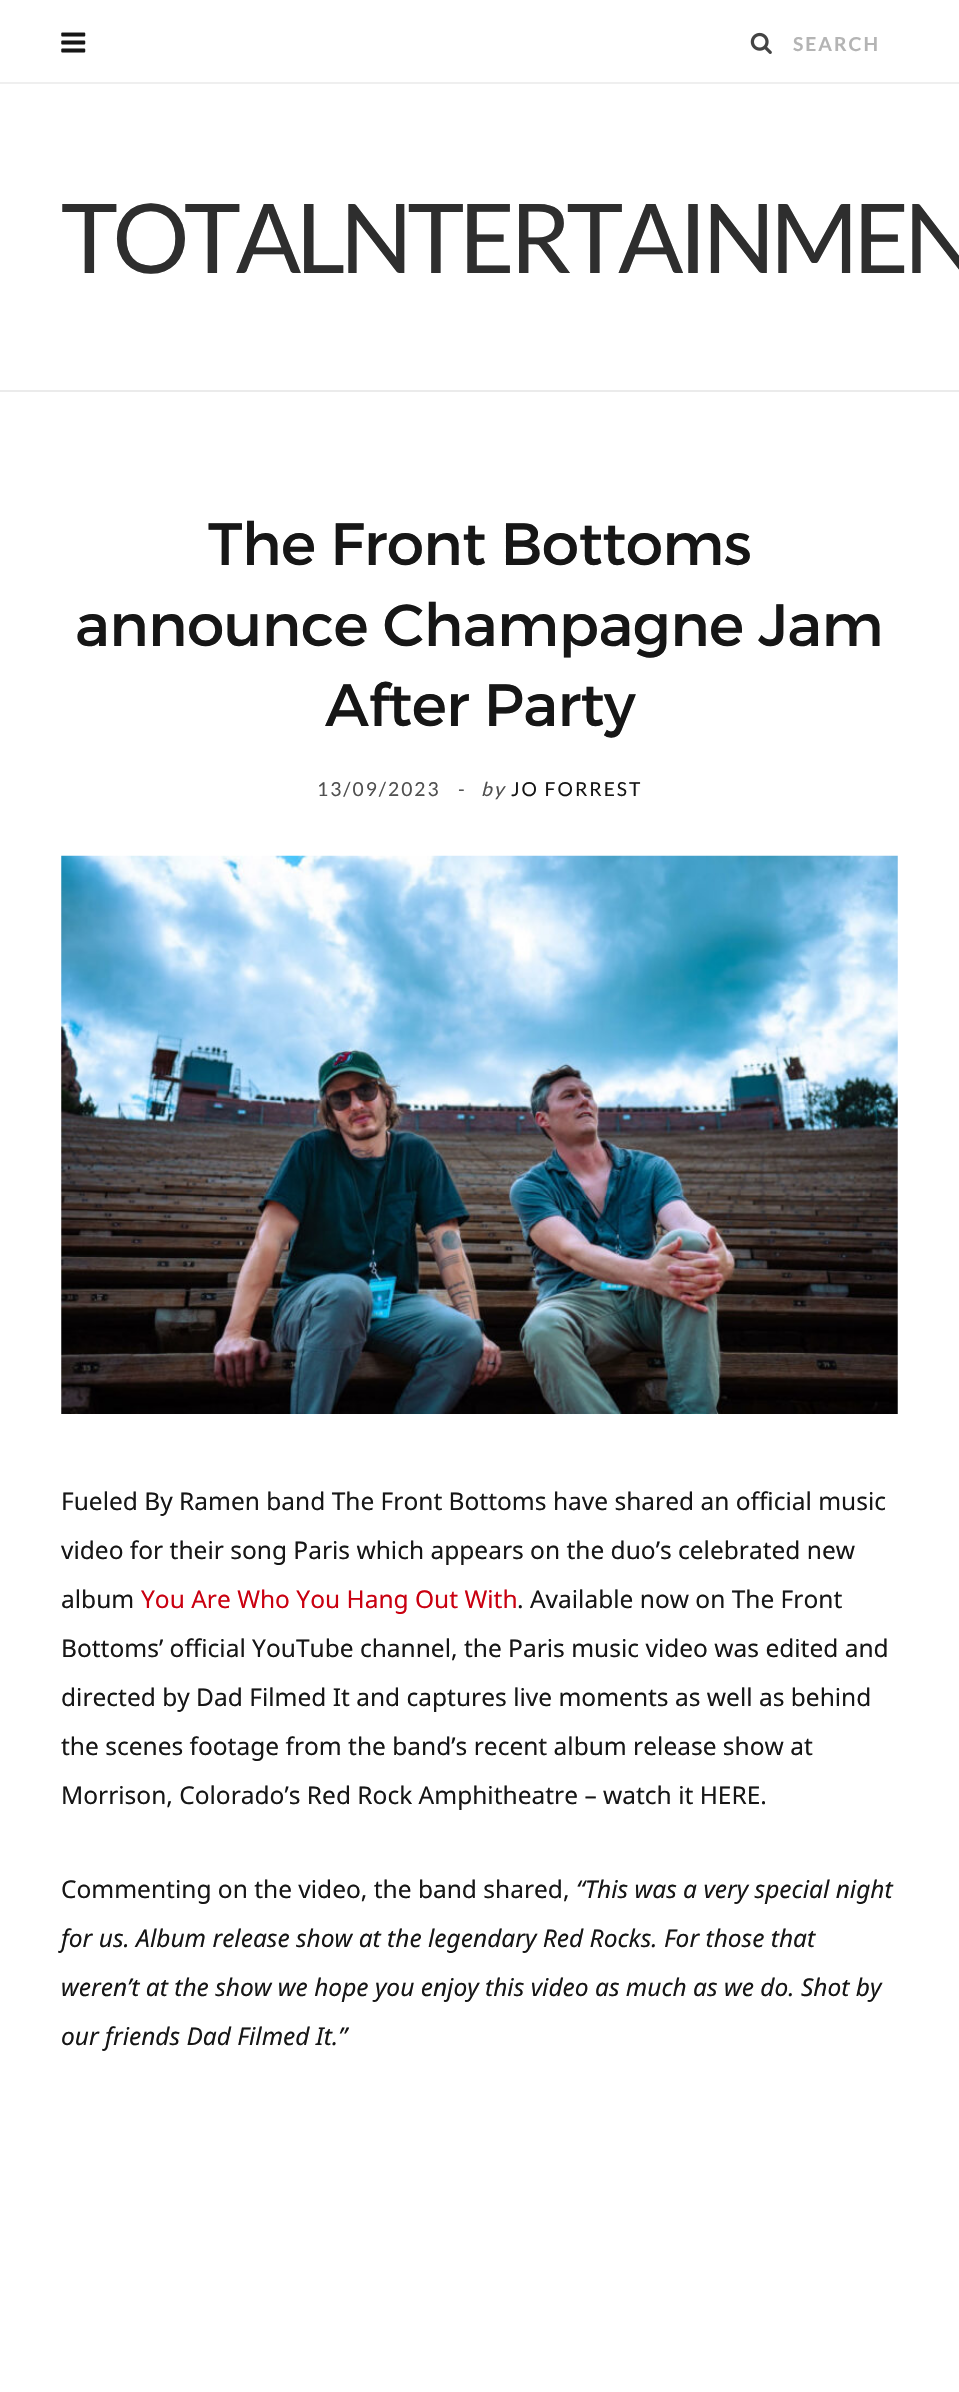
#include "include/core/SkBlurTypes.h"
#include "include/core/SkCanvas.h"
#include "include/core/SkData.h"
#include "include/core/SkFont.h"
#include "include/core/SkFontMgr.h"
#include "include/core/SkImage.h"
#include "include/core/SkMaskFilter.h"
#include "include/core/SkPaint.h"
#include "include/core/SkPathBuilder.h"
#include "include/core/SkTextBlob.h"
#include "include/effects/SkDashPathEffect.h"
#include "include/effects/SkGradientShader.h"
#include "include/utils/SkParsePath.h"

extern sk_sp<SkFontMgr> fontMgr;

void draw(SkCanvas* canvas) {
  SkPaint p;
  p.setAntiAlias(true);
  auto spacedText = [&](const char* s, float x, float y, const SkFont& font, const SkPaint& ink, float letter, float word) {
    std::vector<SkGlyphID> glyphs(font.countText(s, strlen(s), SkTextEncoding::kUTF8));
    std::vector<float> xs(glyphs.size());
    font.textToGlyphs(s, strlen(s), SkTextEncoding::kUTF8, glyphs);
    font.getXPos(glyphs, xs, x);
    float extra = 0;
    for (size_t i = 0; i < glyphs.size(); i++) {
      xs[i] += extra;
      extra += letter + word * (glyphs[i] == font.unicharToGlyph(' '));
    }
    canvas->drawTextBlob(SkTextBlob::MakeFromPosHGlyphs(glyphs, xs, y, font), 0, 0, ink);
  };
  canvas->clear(SK_ColorWHITE);
  p.setColor(SkColorSetRGB(235, 235, 235));
  canvas->drawRect(SkRect::MakeLTRB(0, 390, 959, 392), p);
  p.setColor(SkColorSetRGB(239, 239, 239));
  canvas->drawRect(SkRect::MakeLTRB(0, 82, 959, 84), p);
  canvas->drawImageRect(SkImages::DeferredFromEncodedData(SkData::MakeFromFileName("images/1.png")), SkRect::MakeLTRB(61, 32, 86, 53), SkSamplingOptions());
  canvas->drawImageRect(SkImages::DeferredFromEncodedData(SkData::MakeFromFileName("images/2.png")), SkRect::MakeLTRB(750, 32, 772, 54), SkSamplingOptions());
  canvas->drawImageRect(SkImages::DeferredFromEncodedData(SkData::MakeFromFileName("images/3.png")), SkRect::MakeLTRB(61, 855, 898, 1414), SkSamplingOptions());
  SkFont font1(fontMgr->matchFamilyStyle("Lato", SkFontStyle::Bold()), 19.25f);
  font1.setSubpixel(true);
  p.setColor(SkColorSetRGB(180, 180, 180));
  spacedText("SEARCH", 793, 51, font1, p, 2, 0);
  SkFont font2(fontMgr->matchFamilyStyle("Lato", SkFontStyle::Normal()), 96.25f);
  font2.setSubpixel(true);
  p.setColor(SkColorSetRGB(46, 46, 46));
  spacedText("TOTALNTERTAINMEN", 61, 273, font2, p, -5.25f, 0);
  SkFont font3(fontMgr->matchFamilyStyle("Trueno", SkFontStyle::Normal()), 59.5f);
  font3.setSubpixel(true);
  p.setColor(SkColorSetRGB(22, 22, 22));
  spacedText("The Front Bottoms", 208, 565, font3, p, -0.6f, 0);
  spacedText("announce Champagne Jam", 75, 646, font3, p, -0.6f, 0);
  spacedText("After Party", 325, 726, font3, p, -0.6f, 0);
  SkFont font4(fontMgr->matchFamilyStyle("Lato", SkFontStyle::Normal()), 19.25f);
  font4.setSubpixel(true);
  p.setColor(SkColorSetRGB(80, 80, 80));
  spacedText("13/09/2023", 317, 796, font4, p, 2, 0);
  canvas->drawString("-", 458, 796, font4, p);
  SkFont font5(fontMgr->matchFamilyStyle("Lato", SkFontStyle::Italic()), 19.25f);
  font5.setSubpixel(true);
  spacedText("by", 481, 796, font5, p, 2, 0);
  p.setColor(SkColorSetRGB(22, 22, 22));
  spacedText("JO FORREST", 511, 796, font4, p, 2, 0);
  SkFont font6(fontMgr->matchFamilyStyle("Noto Sans", SkFontStyle::Normal()), 24.5f);
  font6.setSubpixel(true);
  canvas->drawString("Fueled By Ramen band The Front Bottoms have shared an official music", 61, 1510, font6, p);
  canvas->drawString("video for their song Paris which appears on the duo’s celebrated new", 61, 1559, font6, p);
  canvas->drawString("album", 61, 1608, font6, p);
  p.setColor(SkColorSetRGB(202, 0, 16));
  canvas->drawString("You Are Who You Hang Out With", 141, 1608, font6, p);
  p.setColor(SkColorSetRGB(22, 22, 22));
  canvas->drawString(". Available now on The Front", 517, 1608, font6, p);
  canvas->drawString("Bottoms’ official YouTube channel, the Paris music video was edited and", 61, 1657, font6, p);
  canvas->drawString("directed by Dad Filmed It and captures live moments as well as behind", 61, 1706, font6, p);
  canvas->drawString("the scenes footage from the band’s recent album release show at", 61, 1755, font6, p);
  canvas->drawString("Morrison, Colorado’s Red Rock Amphitheatre – watch it HERE.", 61, 1804, font6, p);
  canvas->drawString("Commenting on the video, the band shared,", 61, 1898, font6, p);
  SkFont font7(fontMgr->matchFamilyStyle("Noto Sans", SkFontStyle::Italic()), 24.5f);
  font7.setSubpixel(true);
  canvas->drawString("“This was a very special night", 576, 1898, font7, p);
  canvas->drawString("for us. Album release show at the legendary Red Rocks. For those that", 61, 1947, font7, p);
  canvas->drawString("weren’t at the show we hope you enjoy this video as much as we do. Shot by", 61, 1996, font7, p);
  canvas->drawString("our friends Dad Filmed It.”", 61, 2045, font7, p);
}
